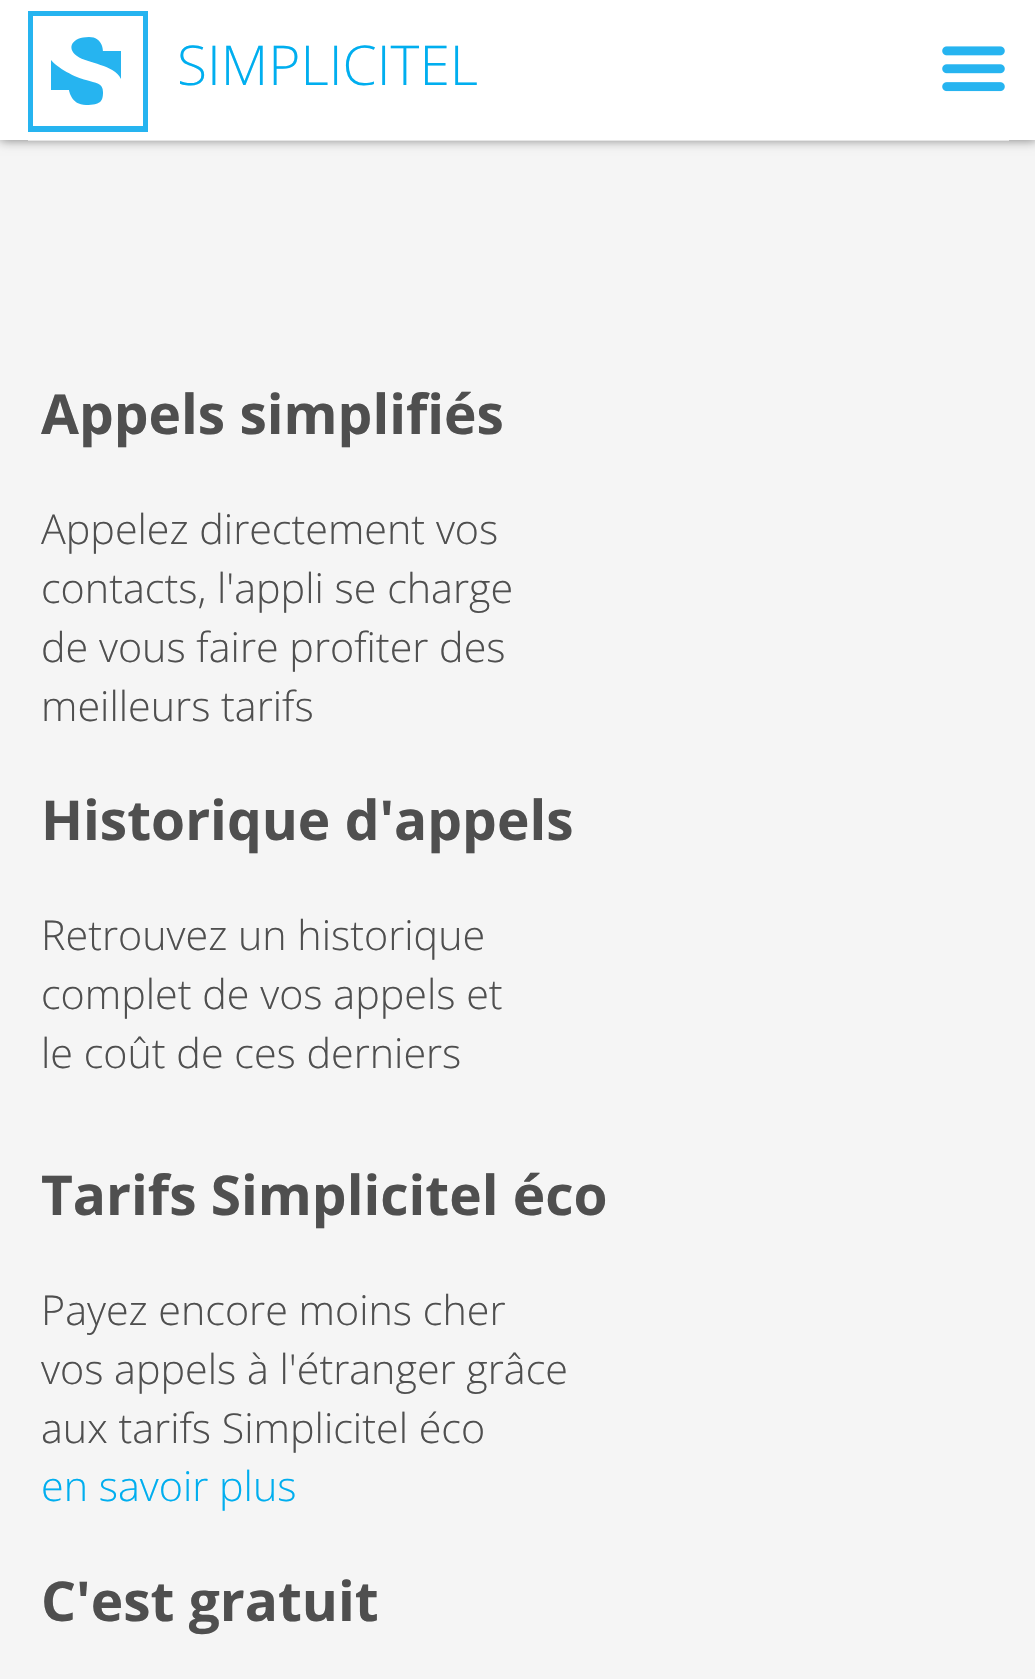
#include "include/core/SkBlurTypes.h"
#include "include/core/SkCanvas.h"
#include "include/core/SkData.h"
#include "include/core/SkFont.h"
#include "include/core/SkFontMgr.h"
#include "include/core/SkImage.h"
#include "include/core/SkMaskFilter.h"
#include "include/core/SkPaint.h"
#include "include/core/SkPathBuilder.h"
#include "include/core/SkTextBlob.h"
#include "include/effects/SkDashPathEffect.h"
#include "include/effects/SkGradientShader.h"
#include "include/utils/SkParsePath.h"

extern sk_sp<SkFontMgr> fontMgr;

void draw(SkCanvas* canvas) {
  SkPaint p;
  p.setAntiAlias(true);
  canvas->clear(SkColorSetRGB(245, 245, 245));
  p.setColor(SkColorSetARGB(128, 0, 0, 0));
  p.setMaskFilter(SkMaskFilter::MakeBlur(kNormal_SkBlurStyle, 5.5f));
  canvas->drawRect(SkRect::MakeLTRB(0, 0, 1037, 140), p);
  p.setMaskFilter(nullptr);
  p.setColor(SK_ColorWHITE);
  canvas->drawRect(SkRect::MakeLTRB(0, 0, 1035, 140), p);
  p.setColor(SkColorSetRGB(38, 180, 240));
  canvas->drawPath(SkPathBuilder(SkPathFillType::kEvenOdd).moveTo(28, 132).lineTo(28, 11).lineTo(148, 11).lineTo(148, 132).close().moveTo(143, 16).lineTo(33, 16).lineTo(33, 126).lineTo(143, 126).close().moveTo(86, 80).cubicTo(96, 83, 103, 83, 103, 92).cubicTo(103, 101, 101, 105, 86, 105).cubicTo(71, 105, 69, 90, 69, 90).lineTo(51, 90).lineTo(51, 60).cubicTo(56, 67, 76, 78, 86, 80).close().moveTo(89, 37).cubicTo(103, 37, 103, 51, 103, 51).lineTo(121, 51).lineTo(121, 79).cubicTo(114, 64, 88, 64, 77, 56).cubicTo(66, 48, 72, 37, 89, 37).close().detach(), p);
  canvas->drawImageRect(SkImages::DeferredFromEncodedData(SkData::MakeFromFileName("images/1.png")), SkRect::MakeLTRB(942, 46, 1005, 92), SkSamplingOptions());
  canvas->save();
  canvas->clipRect(SkRect::MakeLTRB(0, 138, 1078, 141));
  p.setStyle(SkPaint::kStroke_Style);
  p.setStrokeWidth(3);
  p.setColor(SkColorSetRGB(230, 230, 230));
  canvas->drawRect(SkRect::MakeLTRB(29.5f, 141.5f, 1007.5f, 232.5f), p);
  canvas->restore();
  SkFont font1(fontMgr->matchFamilyStyle("Open Sans", SkFontStyle(300, SkFontStyle::kNormal_Width, SkFontStyle::kUpright_Slant)), 55);
  font1.setSubpixel(true);
  p.setStyle(SkPaint::kFill_Style);
  p.setColor(SkColorSetRGB(0, 174, 239));
  canvas->drawString("SIMPLICITEL", 177, 85, font1, p);
  SkFont font2(fontMgr->matchFamilyStyle("Open Sans", SkFontStyle::Bold()), 55);
  font2.setSubpixel(true);
  p.setColor(SkColorSetRGB(79, 79, 79));
  canvas->drawString("Appels simplifiés", 41, 434, font2, p);
  SkFont font3(fontMgr->matchFamilyStyle("Open Sans", SkFontStyle(300, SkFontStyle::kNormal_Width, SkFontStyle::kUpright_Slant)), 41.25f);
  font3.setSubpixel(true);
  canvas->drawString("Appelez directement vos", 41, 544, font3, p);
  canvas->drawString("contacts, l'appli se charge", 41, 603, font3, p);
  canvas->drawString("de vous faire profiter des", 41, 662, font3, p);
  canvas->drawString("meilleurs tarifs", 41, 721, font3, p);
  canvas->drawString("Historique d'appels", 41, 840, font2, p);
  canvas->drawString("Retrouvez un historique", 41, 950, font3, p);
  canvas->drawString("complet de vos appels et", 41, 1009, font3, p);
  canvas->drawString("le coût de ces derniers", 41, 1068, font3, p);
  canvas->drawString("Tarifs Simplicitel éco", 41, 1215, font2, p);
  canvas->drawString("Payez encore moins cher", 41, 1325, font3, p);
  canvas->drawString("vos appels à l'étranger grâce", 41, 1384, font3, p);
  canvas->drawString("aux tarifs Simplicitel éco", 41, 1443, font3, p);
  p.setColor(SkColorSetRGB(0, 174, 239));
  canvas->drawString("en savoir plus", 41, 1501, font3, p);
  p.setColor(SkColorSetRGB(79, 79, 79));
  canvas->drawString("C'est gratuit", 41, 1621, font2, p);
}
